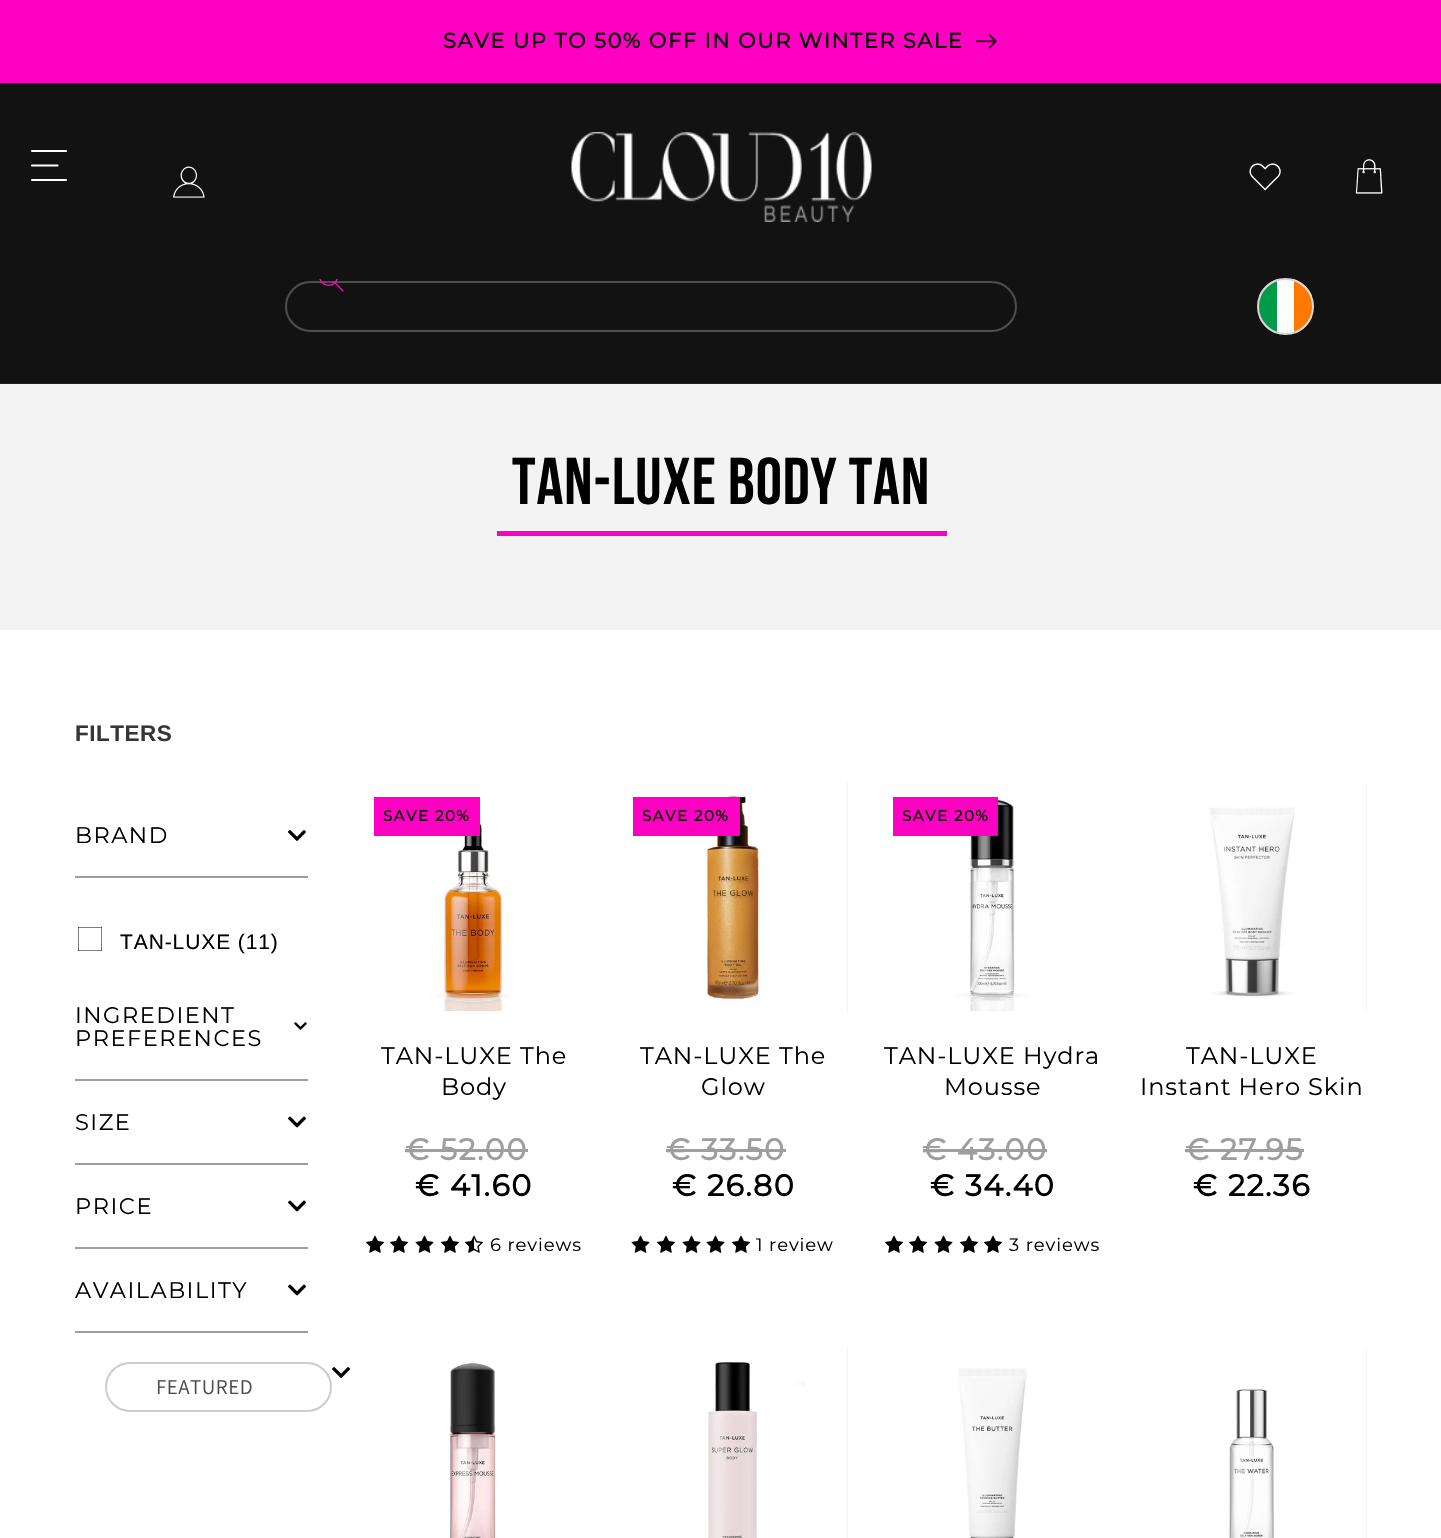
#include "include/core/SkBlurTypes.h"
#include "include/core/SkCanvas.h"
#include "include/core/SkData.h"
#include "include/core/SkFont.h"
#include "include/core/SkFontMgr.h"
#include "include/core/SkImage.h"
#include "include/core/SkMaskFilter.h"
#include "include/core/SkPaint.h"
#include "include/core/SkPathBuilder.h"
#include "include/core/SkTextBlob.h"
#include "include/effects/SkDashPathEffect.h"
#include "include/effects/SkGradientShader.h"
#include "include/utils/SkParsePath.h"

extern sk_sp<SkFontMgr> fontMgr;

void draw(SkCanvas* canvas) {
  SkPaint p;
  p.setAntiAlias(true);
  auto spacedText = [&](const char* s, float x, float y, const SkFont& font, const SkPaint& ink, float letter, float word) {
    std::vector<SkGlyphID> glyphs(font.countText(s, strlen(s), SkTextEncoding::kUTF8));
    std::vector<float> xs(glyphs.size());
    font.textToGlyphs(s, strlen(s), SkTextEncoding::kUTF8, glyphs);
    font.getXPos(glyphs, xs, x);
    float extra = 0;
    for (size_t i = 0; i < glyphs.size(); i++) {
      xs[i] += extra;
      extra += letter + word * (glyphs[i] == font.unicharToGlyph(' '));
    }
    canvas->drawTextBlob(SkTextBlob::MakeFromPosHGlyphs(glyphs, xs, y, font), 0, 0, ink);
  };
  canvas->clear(SK_ColorWHITE);
  p.setColor(SkColorSetRGB(255, 0, 194));
  canvas->drawRect(SkRect::MakeLTRB(0, 0, 1441, 83), p);
  canvas->drawImageRect(SkImages::DeferredFromEncodedData(SkData::MakeFromFileName("images/1.png")), SkRect::MakeLTRB(975, 33, 997, 49), SkSamplingOptions());
  p.setColor(SkColorSetRGB(18, 18, 18));
  canvas->drawRect(SkRect::MakeLTRB(0, 83, 1441, 383), p);
  p.setColor(SkColorSetRGB(37, 37, 37));
  canvas->drawRect(SkRect::MakeLTRB(0, 383, 1441, 384), p);
  p.setStyle(SkPaint::kStroke_Style);
  p.setStrokeWidth(2.1f);
  p.setStrokeCap(SkPaint::kRound_Cap);
  p.setColor(SK_ColorWHITE);
  canvas->drawPath(SkPathBuilder().moveTo(66, 151).lineTo(32, 151).moveTo(66, 180).lineTo(32, 180).moveTo(57.5f, 165.5f).lineTo(32, 165.5f).detach(), p);
  canvas->drawImageRect(SkImages::DeferredFromEncodedData(SkData::MakeFromFileName("images/2.png")), SkRect::MakeLTRB(173, 166, 205, 198), SkSamplingOptions());
  canvas->drawImageRect(SkImages::DeferredFromEncodedData(SkData::MakeFromFileName("images/3.png")), SkRect::MakeLTRB(571, 132, 872, 222), SkSamplingOptions());
  canvas->drawImageRect(SkImages::DeferredFromEncodedData(SkData::MakeFromFileName("images/4.png")), SkRect::MakeLTRB(1249, 163, 1281, 191), SkSamplingOptions());
  canvas->drawImageRect(SkImages::DeferredFromEncodedData(SkData::MakeFromFileName("images/5.png")), SkRect::MakeLTRB(1355, 159, 1383, 194), SkSamplingOptions());
  p.setStrokeWidth(2);
  p.setStrokeCap(SkPaint::kButt_Cap);
  p.setColor(SkColorSetRGB(78, 78, 81));
  canvas->drawRoundRect(SkRect::MakeLTRB(286, 282, 1016, 331), 24.5f, 24.5f, p);
  canvas->drawImageRect(SkImages::DeferredFromEncodedData(SkData::MakeFromFileName("images/6.png")), SkRect::MakeLTRB(319, 279, 344, 292), SkSamplingOptions());
  canvas->save();
  canvas->clipPath(SkPathBuilder().moveTo(1285.5f, 278).cubicTo(1301, 278, 1314, 291, 1314, 306.5f).cubicTo(1314, 322, 1301, 335, 1285.5f, 335).cubicTo(1270, 335, 1257, 322, 1257, 306.5f).cubicTo(1257, 291, 1270, 278, 1285.5f, 278).close().detach(), true);
  p.setStyle(SkPaint::kFill_Style);
  p.setColor(SK_ColorWHITE);
  canvas->drawRect(SkRect::MakeLTRB(1259, 279, 1312, 333), p);
  p.setColor(SkColorSetRGB(0, 154, 73));
  canvas->drawRect(SkRect::MakeLTRB(1259, 279, 1277, 333), p);
  p.setColor(SkColorSetRGB(255, 121, 0));
  canvas->drawRect(SkRect::MakeLTRB(1294, 279, 1312, 333), p);
  canvas->restore();
  p.setStyle(SkPaint::kStroke_Style);
  p.setColor(SkColorSetRGB(214, 214, 214));
  canvas->drawCircle(1285.5f, 306.5f, 27.5f, p);
  p.setStyle(SkPaint::kFill_Style);
  p.setColor(SkColorSetRGB(243, 243, 243));
  canvas->drawRect(SkRect::MakeLTRB(0, 385, 1441, 630), p);
  p.setColor(SkColorSetRGB(244, 244, 244));
  canvas->drawRect(SkRect::MakeLTRB(0, 384, 1441, 385), p);
  p.setColor(SkColorSetRGB(255, 0, 194));
  canvas->drawRect(SkRect::MakeLTRB(497, 531, 947, 536), p);
  p.setColor(SkColorSetRGB(157, 157, 157));
  canvas->drawRect(SkRect::MakeLTRB(75, 876, 308, 878), p);
  canvas->drawImageRect(SkImages::DeferredFromEncodedData(SkData::MakeFromFileName("images/7.png")), SkRect::MakeLTRB(288, 830, 306, 841), SkSamplingOptions());
  canvas->save();
  canvas->clipRect(SkRect::MakeLTRB(78, 927, 102, 951));
  p.setStyle(SkPaint::kStroke_Style);
  p.setStrokeWidth(1.5f);
  p.setColor(SK_ColorBLACK);
  canvas->drawRect(SkRect::MakeLTRB(77.75f, 926.75f, 102.25f, 951.25f), p);
  canvas->restore();
  p.setStyle(SkPaint::kFill_Style);
  p.setColor(SkColorSetRGB(157, 157, 157));
  canvas->drawRect(SkRect::MakeLTRB(75, 1079, 308, 1081), p);
  canvas->drawImageRect(SkImages::DeferredFromEncodedData(SkData::MakeFromFileName("images/8.png")), SkRect::MakeLTRB(294, 1022, 307, 1030), SkSamplingOptions());
  canvas->drawRect(SkRect::MakeLTRB(75, 1163, 308, 1165), p);
  canvas->drawImageRect(SkImages::DeferredFromEncodedData(SkData::MakeFromFileName("images/9.png")), SkRect::MakeLTRB(288, 1116, 306, 1128), SkSamplingOptions());
  canvas->drawRect(SkRect::MakeLTRB(75, 1247, 308, 1249), p);
  canvas->drawImageRect(SkImages::DeferredFromEncodedData(SkData::MakeFromFileName("images/9.png")), SkRect::MakeLTRB(288, 1200, 306, 1212), SkSamplingOptions());
  canvas->drawRect(SkRect::MakeLTRB(75, 1331, 308, 1333), p);
  canvas->drawImageRect(SkImages::DeferredFromEncodedData(SkData::MakeFromFileName("images/9.png")), SkRect::MakeLTRB(288, 1284, 306, 1296), SkSamplingOptions());
  canvas->drawImageRect(SkImages::DeferredFromEncodedData(SkData::MakeFromFileName("images/10.png")), SkRect::MakeLTRB(332, 1367, 350, 1378), SkSamplingOptions());
  p.setStyle(SkPaint::kStroke_Style);
  p.setStrokeWidth(2);
  p.setColor(SkColorSetRGB(204, 204, 204));
  canvas->drawRoundRect(SkRect::MakeLTRB(106, 1363, 331, 1411), 24, 24, p);
  canvas->drawImageRect(SkImages::DeferredFromEncodedData(SkData::MakeFromFileName("images/11.png")), SkRect::MakeLTRB(359, 782, 588, 1011), SkSamplingOptions());
  p.setStyle(SkPaint::kFill_Style);
  p.setColor(SkColorSetRGB(255, 0, 194));
  canvas->drawRect(SkRect::MakeLTRB(374, 797, 480, 836), p);
  p.setColor(SkColorSetRGB(158, 158, 158));
  canvas->drawRect(SkRect::MakeLTRB(405, 1149, 528, 1152), p);
  canvas->drawImageRect(SkImages::DeferredFromEncodedData(SkData::MakeFromFileName("images/12.png")), SkRect::MakeLTRB(366, 1235, 384, 1253), SkSamplingOptions());
  canvas->drawImageRect(SkImages::DeferredFromEncodedData(SkData::MakeFromFileName("images/12.png")), SkRect::MakeLTRB(390, 1235, 408, 1253), SkSamplingOptions());
  canvas->drawImageRect(SkImages::DeferredFromEncodedData(SkData::MakeFromFileName("images/13.png")), SkRect::MakeLTRB(415, 1235, 434, 1253), SkSamplingOptions());
  canvas->drawImageRect(SkImages::DeferredFromEncodedData(SkData::MakeFromFileName("images/12.png")), SkRect::MakeLTRB(441, 1235, 459, 1253), SkSamplingOptions());
  canvas->drawImageRect(SkImages::DeferredFromEncodedData(SkData::MakeFromFileName("images/14.png")), SkRect::MakeLTRB(465, 1235, 483, 1253), SkSamplingOptions());
  p.setColor(SkColorSetRGB(243, 243, 243));
  canvas->drawRect(SkRect::MakeLTRB(847, 782, 848, 1011), p);
  canvas->drawImageRect(SkImages::DeferredFromEncodedData(SkData::MakeFromFileName("images/15.png")), SkRect::MakeLTRB(618, 782, 847, 1011), SkSamplingOptions());
  p.setColor(SkColorSetRGB(255, 0, 194));
  canvas->drawRect(SkRect::MakeLTRB(633, 797, 740, 836), p);
  p.setColor(SkColorSetRGB(158, 158, 158));
  canvas->drawRect(SkRect::MakeLTRB(666, 1149, 786, 1152), p);
  canvas->drawImageRect(SkImages::DeferredFromEncodedData(SkData::MakeFromFileName("images/13.png")), SkRect::MakeLTRB(631, 1235, 650, 1253), SkSamplingOptions());
  canvas->drawImageRect(SkImages::DeferredFromEncodedData(SkData::MakeFromFileName("images/12.png")), SkRect::MakeLTRB(657, 1235, 675, 1253), SkSamplingOptions());
  canvas->drawImageRect(SkImages::DeferredFromEncodedData(SkData::MakeFromFileName("images/13.png")), SkRect::MakeLTRB(682, 1235, 701, 1253), SkSamplingOptions());
  canvas->drawImageRect(SkImages::DeferredFromEncodedData(SkData::MakeFromFileName("images/13.png")), SkRect::MakeLTRB(706, 1235, 725, 1253), SkSamplingOptions());
  canvas->drawImageRect(SkImages::DeferredFromEncodedData(SkData::MakeFromFileName("images/12.png")), SkRect::MakeLTRB(732, 1235, 750, 1253), SkSamplingOptions());
  canvas->drawImageRect(SkImages::DeferredFromEncodedData(SkData::MakeFromFileName("images/16.png")), SkRect::MakeLTRB(878, 782, 1107, 1011), SkSamplingOptions());
  p.setColor(SkColorSetRGB(255, 0, 194));
  canvas->drawRect(SkRect::MakeLTRB(893, 797, 998, 836), p);
  p.setColor(SkColorSetRGB(158, 158, 158));
  canvas->drawRect(SkRect::MakeLTRB(923, 1149, 1047, 1152), p);
  canvas->drawImageRect(SkImages::DeferredFromEncodedData(SkData::MakeFromFileName("images/12.png")), SkRect::MakeLTRB(885, 1235, 903, 1253), SkSamplingOptions());
  canvas->drawImageRect(SkImages::DeferredFromEncodedData(SkData::MakeFromFileName("images/12.png")), SkRect::MakeLTRB(909, 1235, 927, 1253), SkSamplingOptions());
  canvas->drawImageRect(SkImages::DeferredFromEncodedData(SkData::MakeFromFileName("images/13.png")), SkRect::MakeLTRB(934, 1235, 953, 1253), SkSamplingOptions());
  canvas->drawImageRect(SkImages::DeferredFromEncodedData(SkData::MakeFromFileName("images/12.png")), SkRect::MakeLTRB(960, 1235, 978, 1253), SkSamplingOptions());
  canvas->drawImageRect(SkImages::DeferredFromEncodedData(SkData::MakeFromFileName("images/12.png")), SkRect::MakeLTRB(984, 1235, 1002, 1253), SkSamplingOptions());
  p.setColor(SkColorSetRGB(243, 243, 243));
  canvas->drawRect(SkRect::MakeLTRB(1366, 782, 1367, 1011), p);
  canvas->drawImageRect(SkImages::DeferredFromEncodedData(SkData::MakeFromFileName("images/17.png")), SkRect::MakeLTRB(1137, 782, 1366, 1011), SkSamplingOptions());
  p.setColor(SkColorSetRGB(158, 158, 158));
  canvas->drawRect(SkRect::MakeLTRB(1185, 1149, 1304, 1152), p);
  canvas->drawImageRect(SkImages::DeferredFromEncodedData(SkData::MakeFromFileName("images/18.png")), SkRect::MakeLTRB(359, 1349, 588, 1538), SkSamplingOptions());
  p.setColor(SkColorSetRGB(243, 243, 243));
  canvas->drawRect(SkRect::MakeLTRB(847, 1349, 848, 1538), p);
  canvas->drawImageRect(SkImages::DeferredFromEncodedData(SkData::MakeFromFileName("images/19.png")), SkRect::MakeLTRB(618, 1349, 847, 1538), SkSamplingOptions());
  canvas->drawImageRect(SkImages::DeferredFromEncodedData(SkData::MakeFromFileName("images/20.png")), SkRect::MakeLTRB(878, 1349, 1107, 1538), SkSamplingOptions());
  canvas->drawRect(SkRect::MakeLTRB(1366, 1349, 1367, 1538), p);
  canvas->drawImageRect(SkImages::DeferredFromEncodedData(SkData::MakeFromFileName("images/21.png")), SkRect::MakeLTRB(1137, 1349, 1366, 1538), SkSamplingOptions());
  SkFont font1(fontMgr->matchFamilyStyle("Montserrat", SkFontStyle::Bold()), 21);
  font1.setSubpixel(true);
  p.setColor(SK_ColorBLACK);
  spacedText("SAVE UP TO 50% OFF IN OUR WINTER SALE", 443, 48, font1, p, 1.5f, 0);
  SkFont font2(fontMgr->matchFamilyStyle("Bebas Neue", SkFontStyle::Normal()), 66);
  font2.setSubpixel(true);
  spacedText("TAN-LUXE Body Tan", 512, 504, font2, p, 0.9f, 0);
  SkFont font3(fontMgr->matchFamilyStyle("Liberation Sans", SkFontStyle::Bold()), 22.5f);
  font3.setSubpixel(true);
  p.setColor(SkColorSetRGB(54, 54, 54));
  spacedText("FILTERS", 75, 741, font3, p, 0.5f, 0);
  SkFont font4(fontMgr->matchFamilyStyle("Montserrat", SkFontStyle::Normal()), 22.5f);
  font4.setSubpixel(true);
  p.setColor(SK_ColorBLACK);
  spacedText("BRAND", 75, 843, font4, p, 1.5f, 0);
  SkFont font5(fontMgr->matchFamilyStyle("Liberation Sans", SkFontStyle::Normal()), 21);
  font5.setSubpixel(true);
  spacedText("TAN-LUXE (11)", 120, 949, font5, p, 0.9f, 0);
  spacedText("INGREDIENT", 75, 1023, font4, p, 1.5f, 0);
  spacedText("PREFERENCES", 75, 1046, font4, p, 1.5f, 0);
  spacedText("SIZE", 75, 1130, font4, p, 1.5f, 0);
  spacedText("PRICE", 75, 1214, font4, p, 1.5f, 0);
  spacedText("AVAILABILITY", 75, 1298, font4, p, 1.5f, 0);
  SkFont font6(fontMgr->matchFamilyStyle("Assistant", SkFontStyle::Normal()), 21);
  font6.setSubpixel(true);
  p.setColor(SkColorSetRGB(77, 77, 77));
  spacedText("FEATURED", 156, 1394, font6, p, 0.5f, 0);
  SkFont font7(fontMgr->matchFamilyStyle("Montserrat", SkFontStyle::Bold()), 15);
  font7.setSubpixel(true);
  p.setColor(SK_ColorBLACK);
  spacedText("SAVE 20%", 383, 821, font7, p, 1.5f, 0);
  SkFont font8(fontMgr->matchFamilyStyle("Montserrat", SkFontStyle::Normal()), 24);
  font8.setSubpixel(true);
  spacedText("TAN-LUXE The", 381, 1064, font8, p, 0.9f, 0);
  spacedText("Body", 441, 1095, font8, p, 0.9f, 0);
  SkFont font9(fontMgr->matchFamilyStyle("Montserrat", SkFontStyle::Bold()), 30);
  font9.setSubpixel(true);
  p.setColor(SkColorSetRGB(158, 158, 158));
  spacedText("€ 52.00", 405, 1160, font9, p, 1.5f, 0);
  p.setColor(SK_ColorBLACK);
  spacedText("€ 41.60", 415, 1196, font9, p, 1.5f, 0);
  SkFont font10(fontMgr->matchFamilyStyle("Montserrat", SkFontStyle::Normal()), 18);
  font10.setSubpixel(true);
  spacedText("6 reviews", 490, 1251, font10, p, 0.9f, 0);
  spacedText("SAVE 20%", 642, 821, font7, p, 1.5f, 0);
  spacedText("TAN-LUXE The", 640, 1064, font8, p, 0.9f, 0);
  spacedText("Glow", 701, 1095, font8, p, 0.9f, 0);
  p.setColor(SkColorSetRGB(158, 158, 158));
  spacedText("€ 33.50", 666, 1160, font9, p, 1.5f, 0);
  p.setColor(SK_ColorBLACK);
  spacedText("€ 26.80", 672, 1196, font9, p, 1.5f, 0);
  spacedText("1 review", 756, 1251, font10, p, 0.9f, 0);
  spacedText("SAVE 20%", 902, 821, font7, p, 1.5f, 0);
  spacedText("TAN-LUXE Hydra", 884, 1064, font8, p, 0.9f, 0);
  spacedText("Mousse", 944, 1095, font8, p, 0.9f, 0);
  p.setColor(SkColorSetRGB(158, 158, 158));
  spacedText("€ 43.00", 922, 1160, font9, p, 1.5f, 0);
  p.setColor(SK_ColorBLACK);
  spacedText("€ 34.40", 930, 1196, font9, p, 1.5f, 0);
  spacedText("3 reviews", 1009, 1251, font10, p, 0.9f, 0);
  spacedText("TAN-LUXE", 1186, 1064, font8, p, 0.9f, 0);
  spacedText("Instant Hero Skin", 1140, 1095, font8, p, 0.9f, 0);
  p.setColor(SkColorSetRGB(158, 158, 158));
  spacedText("€ 27.95", 1185, 1160, font9, p, 1.5f, 0);
  p.setColor(SK_ColorBLACK);
  spacedText("€ 22.36", 1193, 1196, font9, p, 1.5f, 0);
}
